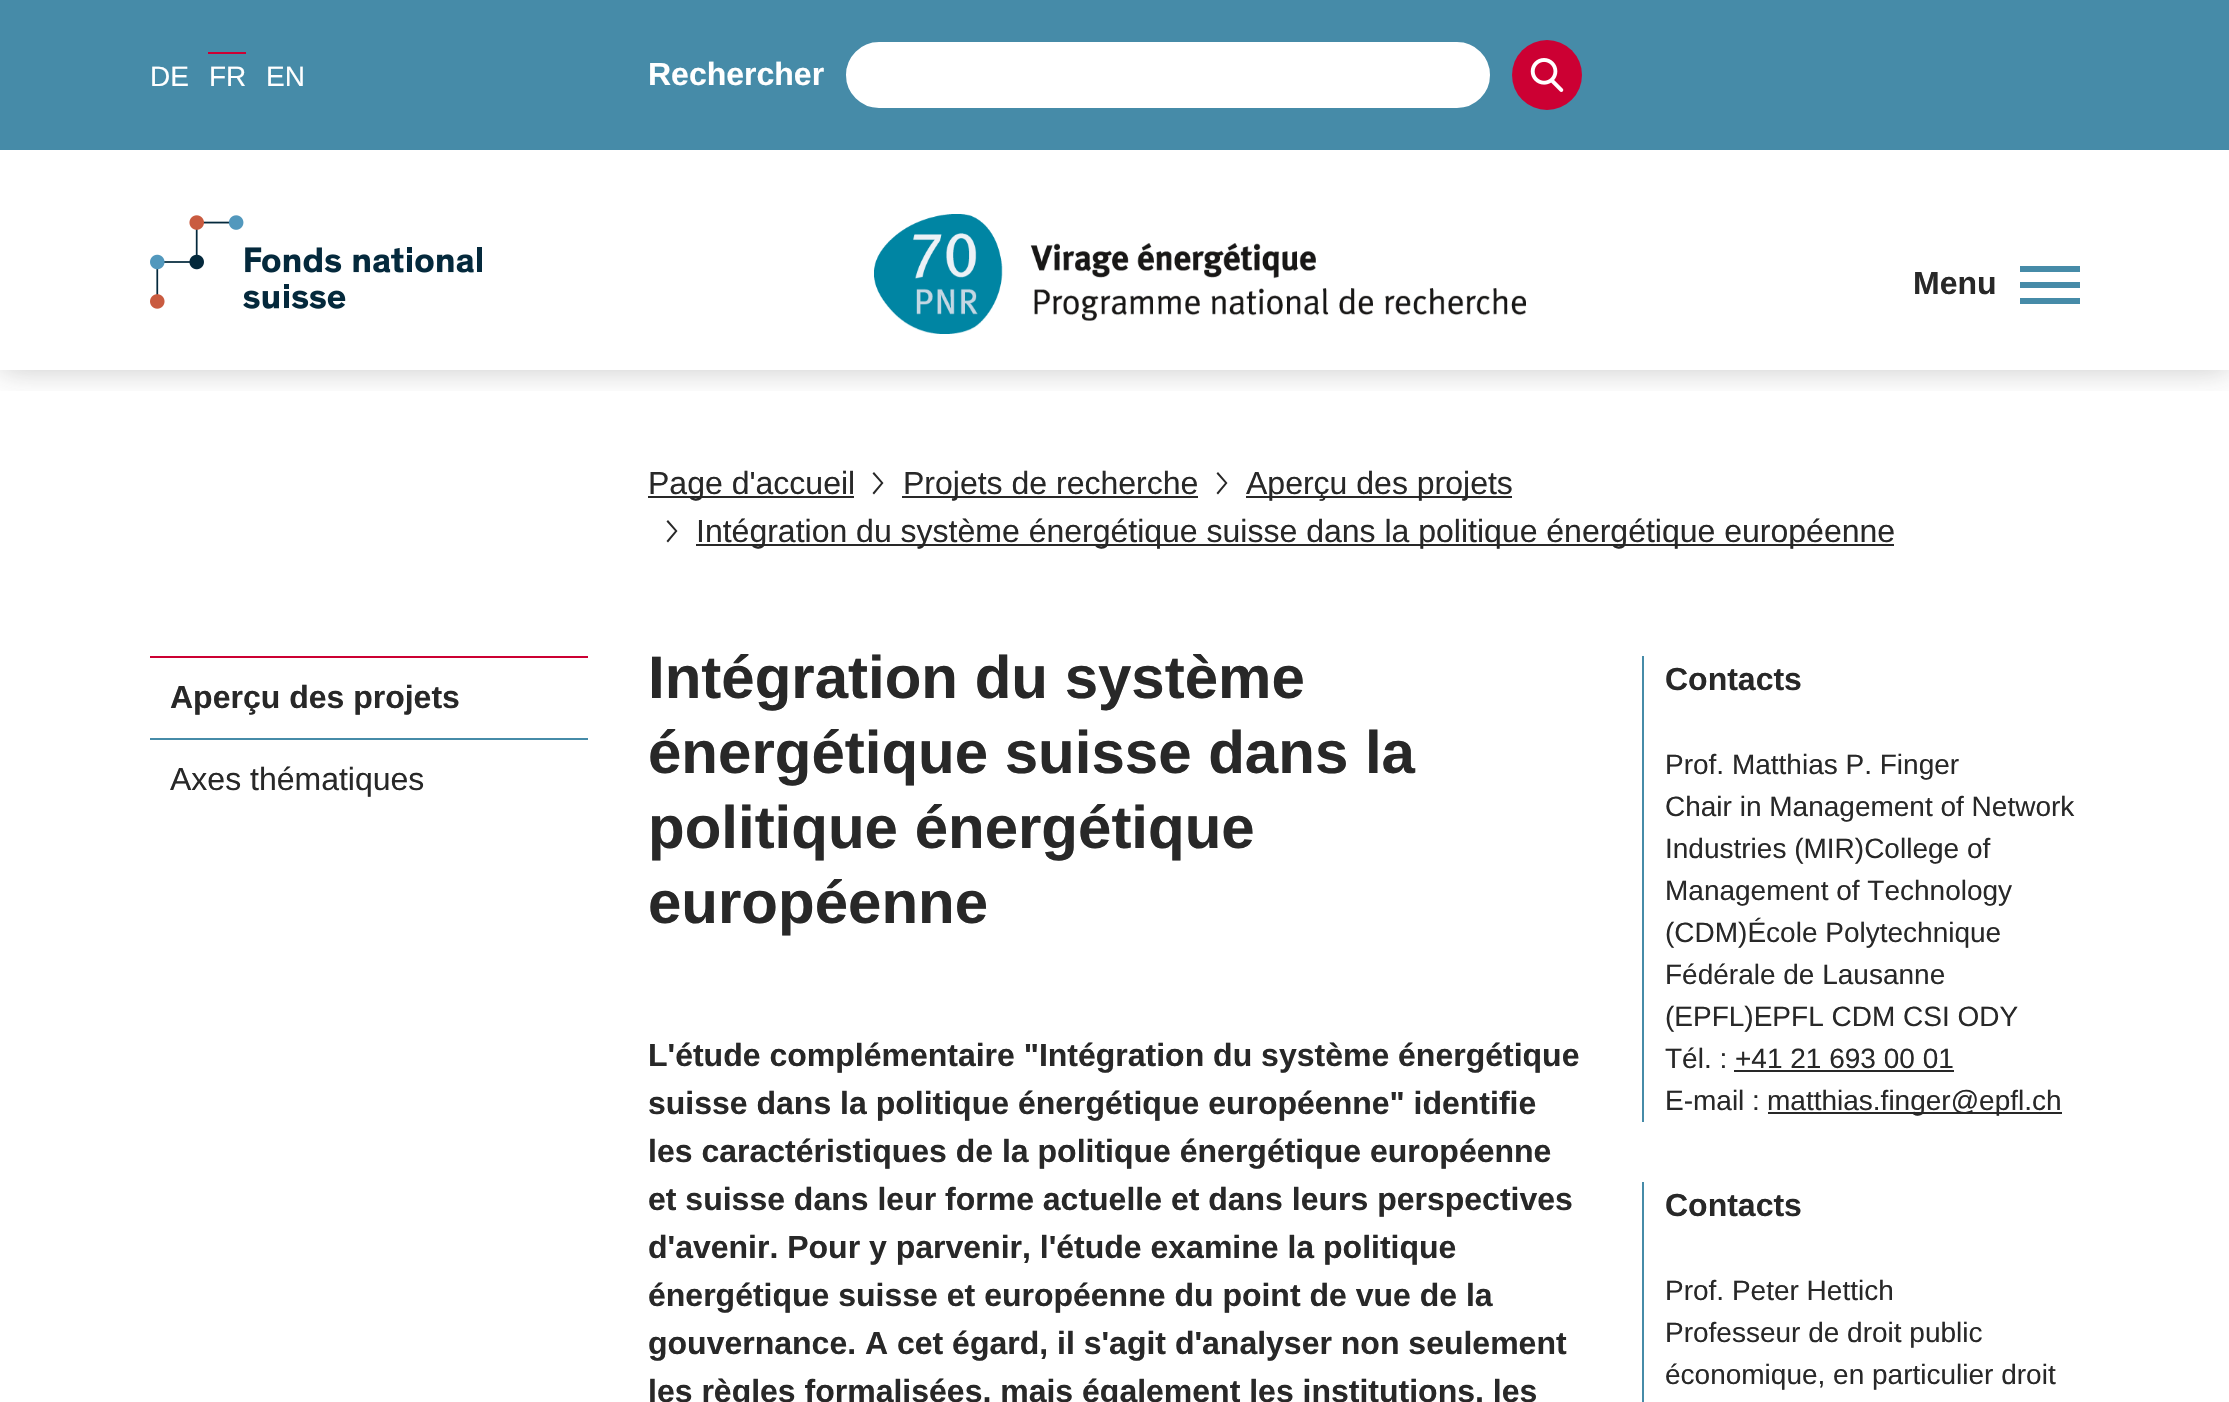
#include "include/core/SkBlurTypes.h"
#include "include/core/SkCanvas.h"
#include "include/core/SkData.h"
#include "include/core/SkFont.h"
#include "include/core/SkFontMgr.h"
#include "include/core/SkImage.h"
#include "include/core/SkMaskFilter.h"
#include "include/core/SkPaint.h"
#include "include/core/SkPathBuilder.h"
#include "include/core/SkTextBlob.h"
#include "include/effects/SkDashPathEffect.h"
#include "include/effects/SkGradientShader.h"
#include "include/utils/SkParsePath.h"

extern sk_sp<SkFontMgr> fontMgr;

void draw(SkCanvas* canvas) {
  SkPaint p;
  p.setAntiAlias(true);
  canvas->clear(SK_ColorWHITE);
  canvas->save();
  canvas->clipRect(SkRect::MakeLTRB(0, 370, 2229, 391));
  p.setColor(SkColorSetARGB(64, 40, 40, 40));
  p.setMaskFilter(SkMaskFilter::MakeBlur(kNormal_SkBlurStyle, 15));
  canvas->drawRect(SkRect::MakeLTRB(0, 0, 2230, 370), p);
  p.setMaskFilter(nullptr);
  canvas->restore();
  p.setColor(SkColorSetRGB(70, 139, 168));
  canvas->drawRect(SkRect::MakeLTRB(0, 0, 2229, 150), p);
  p.setColor(SkColorSetRGB(204, 0, 51));
  canvas->drawRect(SkRect::MakeLTRB(208, 52, 246, 54), p);
  p.setColor(SK_ColorWHITE);
  canvas->drawRoundRect(SkRect::MakeLTRB(845, 41, 1491, 109), 34, 34, p);
  p.setStyle(SkPaint::kStroke_Style);
  p.setStrokeWidth(2);
  p.setColor(SkColorSetRGB(70, 139, 168));
  canvas->drawRoundRect(SkRect::MakeLTRB(845, 41, 1491, 109), 34, 34, p);
  p.setStyle(SkPaint::kFill_Style);
  p.setColor(SkColorSetRGB(204, 0, 51));
  canvas->drawCircle(1547, 75, 35, p);
  canvas->drawImageRect(SkImages::DeferredFromEncodedData(SkData::MakeFromFileName("images/1.png")), SkRect::MakeLTRB(1530, 58, 1564, 92), SkSamplingOptions());
  canvas->drawImageRect(SkImages::DeferredFromEncodedData(SkData::MakeFromFileName("images/2.png")), SkRect::MakeLTRB(150, 215, 482, 309), SkSamplingOptions());
  canvas->drawImageRect(SkImages::DeferredFromEncodedData(SkData::MakeFromFileName("images/3.png")), SkRect::MakeLTRB(874, 214, 1526, 334), SkSamplingOptions());
  p.setColor(SkColorSetRGB(70, 139, 168));
  canvas->drawRect(SkRect::MakeLTRB(2020, 282, 2080, 288), p);
  canvas->drawRect(SkRect::MakeLTRB(2020, 266, 2080, 272), p);
  canvas->drawRect(SkRect::MakeLTRB(2020, 298, 2080, 304), p);
  p.setColor(SkColorSetRGB(40, 40, 40));
  canvas->drawRect(SkRect::MakeLTRB(648, 496, 854, 498), p);
  canvas->drawPath(SkPathBuilder().moveTo(874, 494.5f).lineTo(872.5f, 493).lineTo(881, 483).lineTo(872.5f, 473.5f).lineTo(874, 472).lineTo(883.5f, 483).close().detach(), p);
  canvas->drawRect(SkRect::MakeLTRB(902, 496, 1198, 498), p);
  canvas->drawPath(SkPathBuilder().moveTo(1218, 494.5f).lineTo(1216.5f, 493).lineTo(1225, 483).lineTo(1216.5f, 473.5f).lineTo(1218, 472).lineTo(1227.5f, 483).close().detach(), p);
  canvas->drawRect(SkRect::MakeLTRB(1246, 496, 1512, 498), p);
  canvas->drawPath(SkPathBuilder().moveTo(668, 542.5f).lineTo(666.5f, 541).lineTo(675, 531).lineTo(666.5f, 521.5f).lineTo(668, 520).lineTo(677.5f, 531).close().detach(), p);
  canvas->drawRect(SkRect::MakeLTRB(696, 544, 1894, 546), p);
  p.setColor(SkColorSetRGB(204, 0, 51));
  canvas->drawRect(SkRect::MakeLTRB(150, 656, 588, 658), p);
  p.setColor(SkColorSetRGB(70, 139, 168));
  canvas->drawRect(SkRect::MakeLTRB(150, 738, 588, 740), p);
  canvas->drawRect(SkRect::MakeLTRB(1642, 656, 1644, 1122), p);
  p.setColor(SkColorSetRGB(40, 40, 40));
  canvas->drawRect(SkRect::MakeLTRB(1734, 1070, 1954, 1072), p);
  canvas->drawRect(SkRect::MakeLTRB(1768, 1112, 2062, 1114), p);
  p.setColor(SkColorSetRGB(70, 139, 168));
  canvas->drawRect(SkRect::MakeLTRB(1642, 1182, 1644, 1402), p);
  SkFont font1(fontMgr->matchFamilyStyle("Liberation Sans", SkFontStyle::Normal()), 28);
  font1.setSubpixel(true);
  p.setColor(SK_ColorWHITE);
  canvas->drawString("DE", 150, 86, font1, p);
  canvas->drawString("FR", 209, 86, font1, p);
  canvas->drawString("EN", 266, 86, font1, p);
  SkFont font2(fontMgr->matchFamilyStyle("Liberation Sans", SkFontStyle::Bold()), 32);
  font2.setSubpixel(true);
  canvas->drawString("Rechercher", 648, 85, font2, p);
  p.setColor(SkColorSetRGB(40, 40, 40));
  canvas->drawString("Menu", 1913, 294, font2, p);
  SkFont font3(fontMgr->matchFamilyStyle("Liberation Sans", SkFontStyle::Normal()), 32);
  font3.setSubpixel(true);
  canvas->drawString("Page d'accueil", 648, 494, font3, p);
  canvas->drawString("Projets de recherche", 903, 494, font3, p);
  canvas->drawString("Aperçu des projets", 1246, 494, font3, p);
  canvas->drawString("Intégration du système énergétique suisse dans la politique énergétique européenne", 696, 542, font3, p);
  canvas->drawString("Aperçu des projets", 170, 708, font2, p);
  canvas->drawString("Axes thématiques", 170, 790, font3, p);
  SkFont font4(fontMgr->matchFamilyStyle("Liberation Sans", SkFontStyle::Bold()), 60);
  font4.setSubpixel(true);
  canvas->drawString("Intégration du système", 648, 698, font4, p);
  canvas->drawString("énergétique suisse dans la", 648, 773, font4, p);
  canvas->drawString("politique énergétique", 648, 848, font4, p);
  canvas->drawString("européenne", 648, 923, font4, p);
  canvas->drawString("L'étude complémentaire \"Intégration du système énergétique", 648, 1066, font2, p);
  canvas->drawString("suisse dans la politique énergétique européenne\" identifie", 648, 1114, font2, p);
  canvas->drawString("les caractéristiques de la politique énergétique européenne", 648, 1162, font2, p);
  canvas->drawString("et suisse dans leur forme actuelle et dans leurs perspectives", 648, 1210, font2, p);
  canvas->drawString("d'avenir. Pour y parvenir, l'étude examine la politique", 648, 1258, font2, p);
  canvas->drawString("énergétique suisse et européenne du point de vue de la", 648, 1306, font2, p);
  canvas->drawString("gouvernance. A cet égard, il s'agit d'analyser non seulement", 648, 1354, font2, p);
  canvas->drawString("les règles formalisées, mais également les institutions, les", 648, 1402, font2, p);
  canvas->drawString("Contacts", 1665, 690, font2, p);
  canvas->drawString("Prof. Matthias P. Finger", 1665, 774, font1, p);
  canvas->drawString("Chair in Management of Network", 1665, 816, font1, p);
  canvas->drawString("Industries (MIR)College of", 1665, 858, font1, p);
  canvas->drawString("Management of Technology", 1665, 900, font1, p);
  canvas->drawString("(CDM)École Polytechnique", 1665, 942, font1, p);
  canvas->drawString("Fédérale de Lausanne", 1665, 984, font1, p);
  canvas->drawString("(EPFL)EPFL CDM CSI ODY", 1665, 1026, font1, p);
  canvas->drawString("Tél. : +41 21 693 00 01", 1665, 1068, font1, p);
  canvas->drawString("E-mail :", 1665, 1110, font1, p);
  canvas->drawString("matthias.finger@epfl.ch", 1767, 1110, font1, p);
  canvas->drawString("Contacts", 1665, 1216, font2, p);
  canvas->drawString("Prof. Peter Hettich", 1665, 1300, font1, p);
  canvas->drawString("Professeur de droit public", 1665, 1342, font1, p);
  canvas->drawString("économique, en particulier droit", 1665, 1384, font1, p);
}
